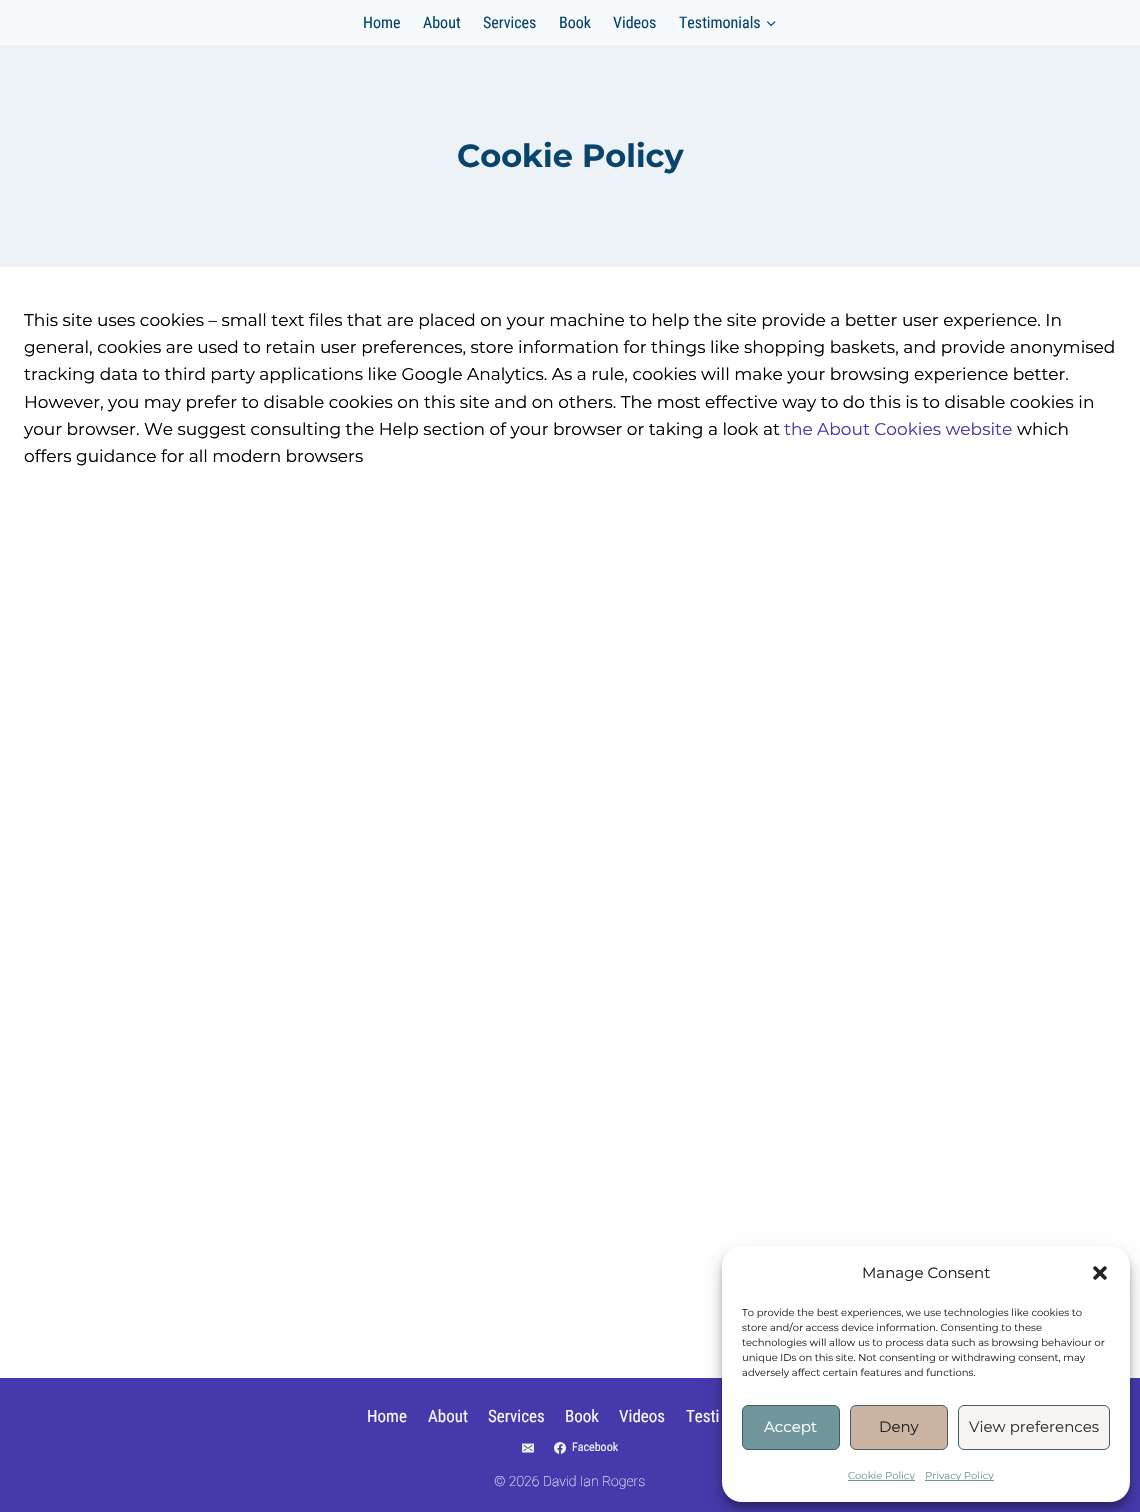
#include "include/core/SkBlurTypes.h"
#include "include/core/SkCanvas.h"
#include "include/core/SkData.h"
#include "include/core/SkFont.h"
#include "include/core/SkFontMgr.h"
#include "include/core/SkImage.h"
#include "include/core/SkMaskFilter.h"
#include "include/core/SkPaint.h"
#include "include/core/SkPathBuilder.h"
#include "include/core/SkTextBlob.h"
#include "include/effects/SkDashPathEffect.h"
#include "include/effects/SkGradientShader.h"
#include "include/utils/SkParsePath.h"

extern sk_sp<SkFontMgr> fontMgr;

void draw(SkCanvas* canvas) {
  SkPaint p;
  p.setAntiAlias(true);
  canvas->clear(SK_ColorWHITE);
  p.setColor(SkColorSetRGB(247, 250, 252));
  canvas->drawRect(SkRect::MakeLTRB(0, 0, 1140, 45), p);
  canvas->drawImageRect(SkImages::DeferredFromEncodedData(SkData::MakeFromFileName("images/1.png")), SkRect::MakeLTRB(767, 21, 776, 27), SkSamplingOptions());
  p.setColor(SkColorSetRGB(237, 242, 247));
  canvas->drawRect(SkRect::MakeLTRB(0, 45, 1140, 267), p);
  p.setColor(SkColorSetRGB(69, 58, 172));
  canvas->drawRect(SkRect::MakeLTRB(0, 1378, 1140, 1512), p);
  canvas->drawImageRect(SkImages::DeferredFromEncodedData(SkData::MakeFromFileName("images/2.png")), SkRect::MakeLTRB(522, 1443, 534, 1453), SkSamplingOptions());
  canvas->drawImageRect(SkImages::DeferredFromEncodedData(SkData::MakeFromFileName("images/3.png")), SkRect::MakeLTRB(554, 1442, 566, 1454), SkSamplingOptions());
  p.setColor(SkColorSetARGB(59, 0, 0, 0));
  p.setMaskFilter(SkMaskFilter::MakeBlur(kNormal_SkBlurStyle, 3));
  canvas->drawRoundRect(SkRect::MakeLTRB(722, 1252, 1130, 1508), 20, 20, p);
  p.setMaskFilter(nullptr);
  p.setColor(SkColorSetARGB(48, 0, 0, 0));
  p.setMaskFilter(SkMaskFilter::MakeBlur(kNormal_SkBlurStyle, 10));
  canvas->drawRoundRect(SkRect::MakeLTRB(722, 1256, 1130, 1512), 20, 20, p);
  p.setMaskFilter(nullptr);
  p.setColor(SK_ColorWHITE);
  canvas->drawRoundRect(SkRect::MakeLTRB(722, 1246, 1130, 1502), 20, 20, p);
  canvas->drawImageRect(SkImages::DeferredFromEncodedData(SkData::MakeFromFileName("images/4.png")), SkRect::MakeLTRB(1093, 1266, 1107, 1280), SkSamplingOptions());
  p.setColor(SkColorSetRGB(113, 150, 156));
  canvas->drawRoundRect(SkRect::MakeLTRB(742.5f, 1405.5f, 839.5f, 1449.5f), 5.5f, 5.5f, p);
  p.setStyle(SkPaint::kStroke_Style);
  p.setStrokeWidth(1);
  p.setColor(SkColorSetRGB(68, 92, 101));
  canvas->drawRoundRect(SkRect::MakeLTRB(742.5f, 1405.5f, 839.5f, 1449.5f), 5.5f, 5.5f, p);
  p.setStyle(SkPaint::kFill_Style);
  p.setColor(SkColorSetRGB(203, 180, 164));
  canvas->drawRoundRect(SkRect::MakeLTRB(850.5f, 1405.5f, 947.5f, 1449.5f), 5.5f, 5.5f, p);
  p.setStyle(SkPaint::kStroke_Style);
  p.setColor(SkColorSetRGB(68, 92, 101));
  canvas->drawRoundRect(SkRect::MakeLTRB(850.5f, 1405.5f, 947.5f, 1449.5f), 5.5f, 5.5f, p);
  p.setStyle(SkPaint::kFill_Style);
  p.setColor(SkColorSetRGB(248, 244, 242));
  canvas->drawRoundRect(SkRect::MakeLTRB(958.5f, 1405.5f, 1109.5f, 1449.5f), 5.5f, 5.5f, p);
  p.setStyle(SkPaint::kStroke_Style);
  p.setColor(SkColorSetRGB(68, 92, 101));
  canvas->drawRoundRect(SkRect::MakeLTRB(958.5f, 1405.5f, 1109.5f, 1449.5f), 5.5f, 5.5f, p);
  p.setStyle(SkPaint::kFill_Style);
  p.setColor(SkColorSetRGB(113, 150, 156));
  canvas->drawRect(SkRect::MakeLTRB(848, 1480, 915, 1481), p);
  canvas->drawRect(SkRect::MakeLTRB(925, 1480, 994, 1481), p);
  SkFont font1(fontMgr->matchFamilyStyle("Roboto Condensed", SkFontStyle::Normal()), 16);
  font1.setSubpixel(true);
  p.setColor(SkColorSetRGB(8, 68, 108));
  canvas->drawString("Home", 363, 28, font1, p);
  canvas->drawString("About", 423, 28, font1, p);
  canvas->drawString("Services", 483, 28, font1, p);
  canvas->drawString("Book", 559, 28, font1, p);
  canvas->drawString("Videos", 613, 28, font1, p);
  canvas->drawString("Testimonials", 679, 28, font1, p);
  SkFont font2(fontMgr->matchFamilyStyle("Montserrat", SkFontStyle::Bold()), 32);
  font2.setSubpixel(true);
  canvas->drawString("Cookie Policy", 457, 167, font2, p);
  SkFont font3(fontMgr->matchFamilyStyle("Montserrat", SkFontStyle::Normal()), 17);
  font3.setSubpixel(true);
  p.setColor(SK_ColorBLACK);
  canvas->drawString("This site uses cookies – small text files that are placed on your machine to help the site provide a better user experience. In", 24, 326, font3, p);
  canvas->drawString("general, cookies are used to retain user preferences, store information for things like shopping baskets, and provide anonymised", 24, 353, font3, p);
  canvas->drawString("tracking data to third party applications like Google Analytics. As a rule, cookies will make your browsing experience better.", 24, 380, font3, p);
  canvas->drawString("However, you may prefer to disable cookies on this site and on others. The most effective way to do this is to disable cookies in", 24, 408, font3, p);
  canvas->drawString("your browser. We suggest consulting the Help section of your browser or taking a look at", 24, 435, font3, p);
  p.setColor(SkColorSetRGB(69, 58, 172));
  canvas->drawString("the About Cookies website", 784, 435, font3, p);
  p.setColor(SK_ColorBLACK);
  canvas->drawString("which", 1017, 435, font3, p);
  canvas->drawString("offers guidance for all modern browsers", 24, 462, font3, p);
  SkFont font4(fontMgr->matchFamilyStyle("Roboto Condensed", SkFontStyle::Normal()), 17);
  font4.setSubpixel(true);
  p.setColor(SkColorSetRGB(247, 250, 252));
  canvas->drawString("Home", 367, 1422, font4, p);
  canvas->drawString("About", 428, 1422, font4, p);
  canvas->drawString("Services", 488, 1422, font4, p);
  canvas->drawString("Book", 565, 1422, font4, p);
  canvas->drawString("Videos", 619, 1422, font4, p);
  canvas->drawString("Testi", 686, 1422, font4, p);
  SkFont font5(fontMgr->matchFamilyStyle("Roboto Condensed", SkFontStyle::Normal()), 12);
  font5.setSubpixel(true);
  p.setColor(SkColorSetRGB(237, 242, 247));
  canvas->drawString("Facebook", 572, 1451, font5, p);
  SkFont font6(fontMgr->matchFamilyStyle("Roboto", SkFontStyle(100, SkFontStyle::kNormal_Width, SkFontStyle::kUpright_Slant)), 14);
  font6.setSubpixel(true);
  p.setColor(SkColorSetRGB(247, 250, 252));
  canvas->drawString("© 2026 David Ian Rogers", 494, 1486, font6, p);
  SkFont font7(fontMgr->matchFamilyStyle("Montserrat", SkFontStyle::Normal()), 15);
  font7.setSubpixel(true);
  p.setColor(SkColorSetRGB(34, 34, 34));
  canvas->drawString("Manage Consent", 862, 1278, font7, p);
  SkFont font8(fontMgr->matchFamilyStyle("Montserrat", SkFontStyle::Normal()), 10);
  font8.setSubpixel(true);
  canvas->drawString("To provide the best experiences, we use technologies like cookies to", 742, 1316, font8, p);
  canvas->drawString("store and/or access device information. Consenting to these", 742, 1331, font8, p);
  canvas->drawString("technologies will allow us to process data such as browsing behaviour or", 742, 1346, font8, p);
  canvas->drawString("unique IDs on this site. Not consenting or withdrawing consent, may", 742, 1361, font8, p);
  canvas->drawString("adversely affect certain features and functions.", 742, 1376, font8, p);
  p.setColor(SK_ColorWHITE);
  canvas->drawString("Accept", 764, 1432, font7, p);
  p.setColor(SkColorSetRGB(34, 34, 34));
  canvas->drawString("Deny", 879, 1432, font7, p);
  p.setColor(SkColorSetRGB(51, 51, 51));
  canvas->drawString("View preferences", 969, 1432, font7, p);
  p.setColor(SkColorSetRGB(113, 150, 156));
  canvas->drawString("Cookie Policy", 848, 1479, font8, p);
  canvas->drawString("Privacy Policy", 925, 1479, font8, p);
}
